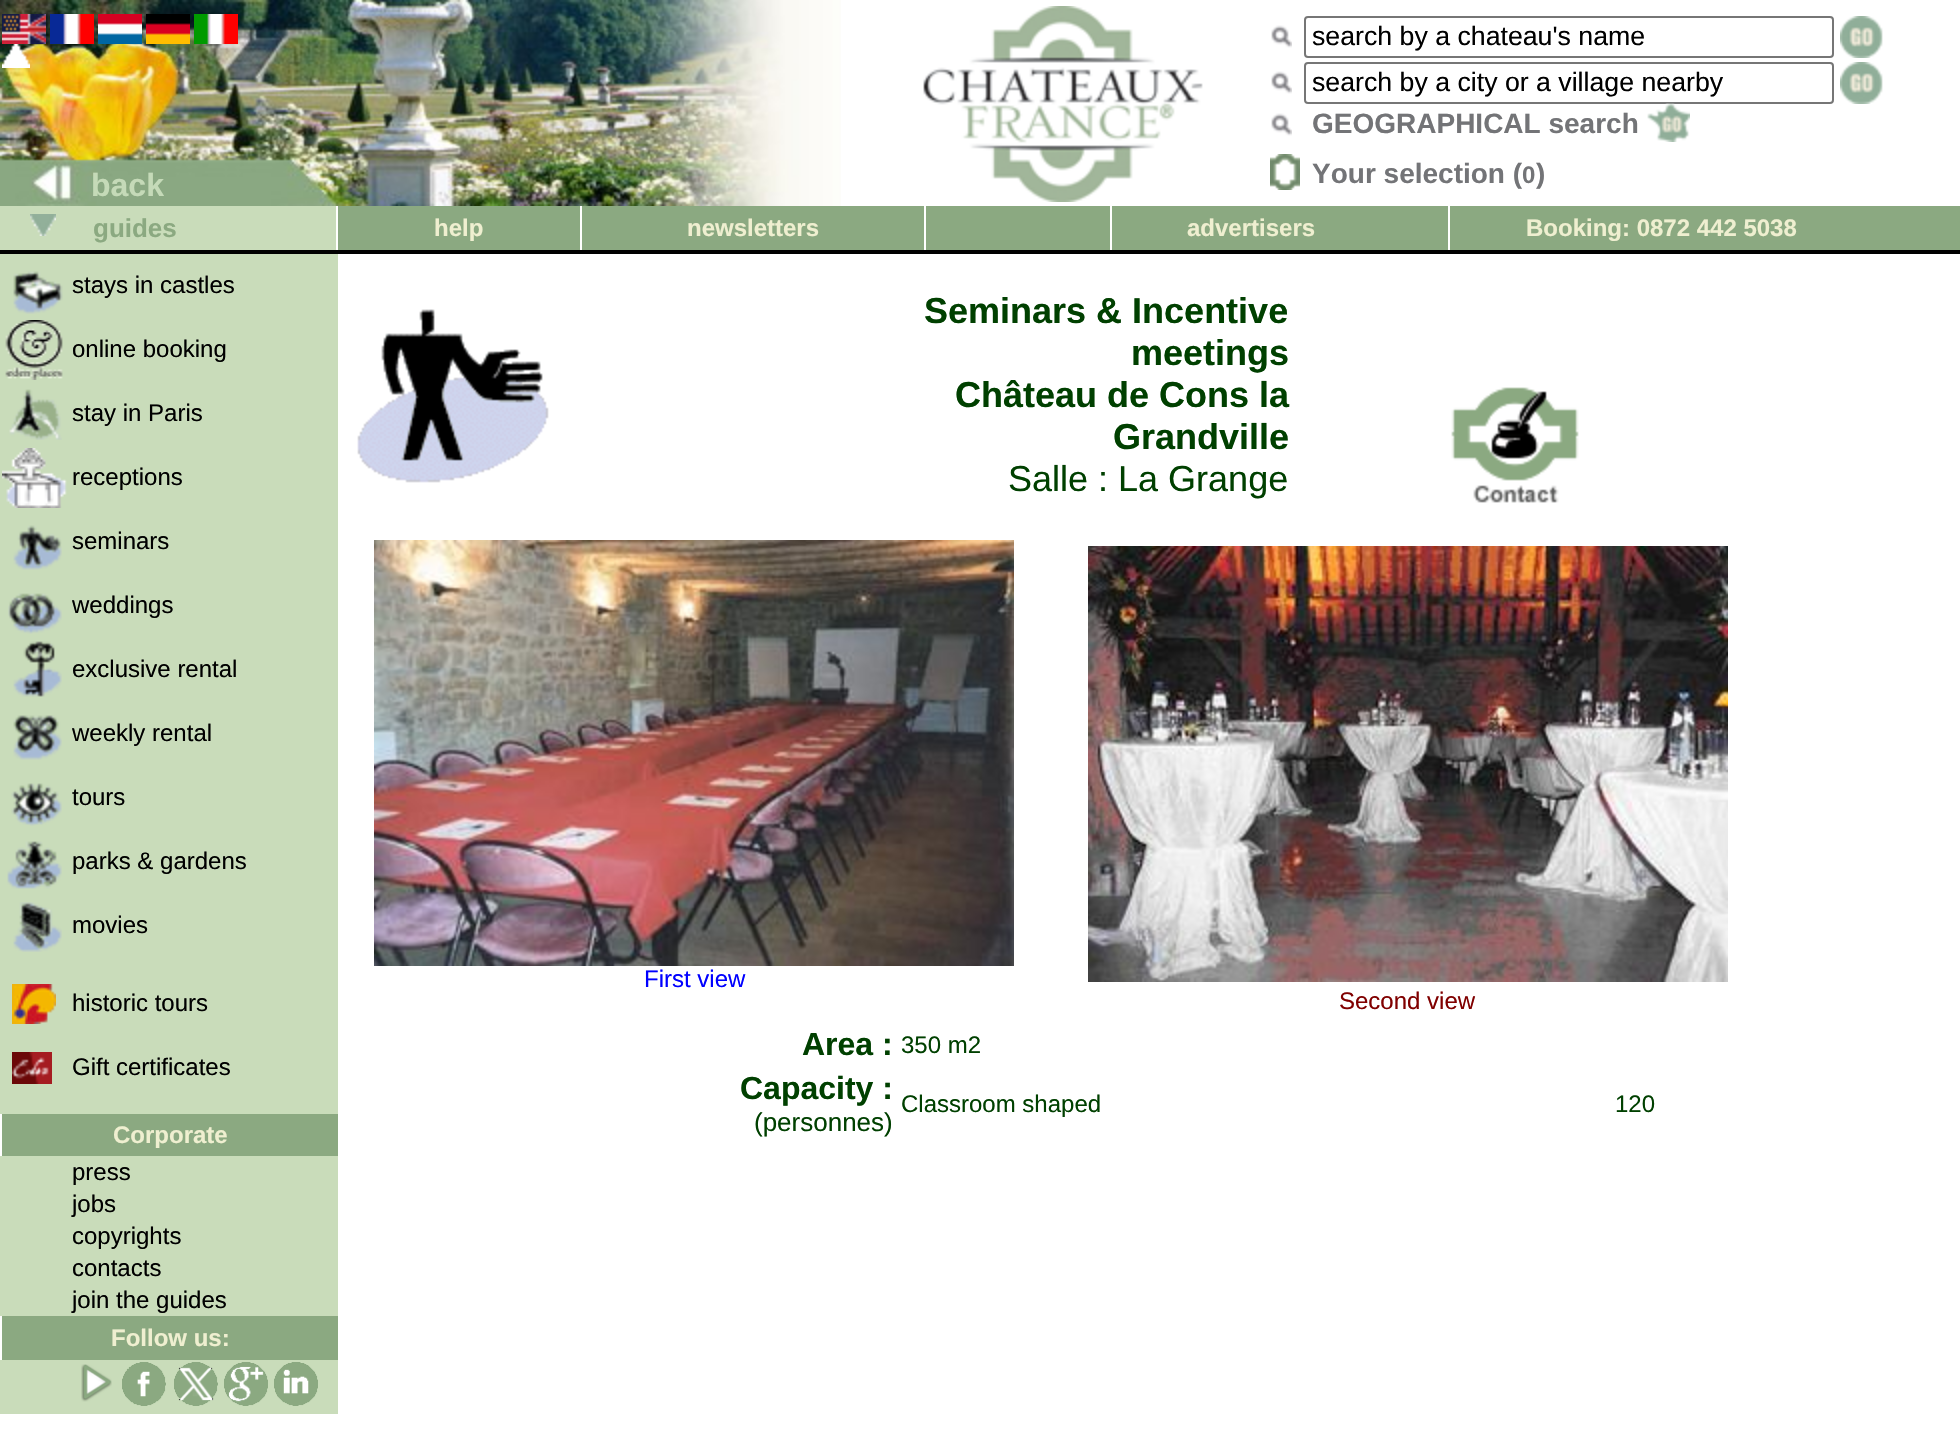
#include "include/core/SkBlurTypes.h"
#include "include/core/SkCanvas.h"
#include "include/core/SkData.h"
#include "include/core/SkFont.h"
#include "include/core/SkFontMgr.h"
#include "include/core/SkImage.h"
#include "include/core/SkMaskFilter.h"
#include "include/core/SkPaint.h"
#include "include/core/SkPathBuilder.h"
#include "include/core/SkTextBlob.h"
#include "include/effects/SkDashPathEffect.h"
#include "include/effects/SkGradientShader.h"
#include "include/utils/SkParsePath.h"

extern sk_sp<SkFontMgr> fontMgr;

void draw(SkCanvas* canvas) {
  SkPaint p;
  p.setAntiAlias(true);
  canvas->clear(SK_ColorWHITE);
  canvas->drawImageRect(SkImages::DeferredFromEncodedData(SkData::MakeFromFileName("images/1.png")), SkRect::MakeLTRB(0, 0, 841, 206), SkSamplingOptions());
  canvas->drawImageRect(SkImages::DeferredFromEncodedData(SkData::MakeFromFileName("images/2.png")), SkRect::MakeLTRB(2, 14, 46, 44), SkSamplingOptions());
  canvas->drawImageRect(SkImages::DeferredFromEncodedData(SkData::MakeFromFileName("images/3.png")), SkRect::MakeLTRB(2, 44, 30, 68), SkSamplingOptions());
  canvas->drawImageRect(SkImages::DeferredFromEncodedData(SkData::MakeFromFileName("images/4.png")), SkRect::MakeLTRB(50, 14, 94, 44), SkSamplingOptions());
  canvas->drawImageRect(SkImages::DeferredFromEncodedData(SkData::MakeFromFileName("images/5.png")), SkRect::MakeLTRB(98, 14, 142, 44), SkSamplingOptions());
  canvas->drawImageRect(SkImages::DeferredFromEncodedData(SkData::MakeFromFileName("images/6.png")), SkRect::MakeLTRB(146, 14, 190, 44), SkSamplingOptions());
  canvas->drawImageRect(SkImages::DeferredFromEncodedData(SkData::MakeFromFileName("images/7.png")), SkRect::MakeLTRB(194, 14, 238, 44), SkSamplingOptions());
  canvas->drawImageRect(SkImages::DeferredFromEncodedData(SkData::MakeFromFileName("images/8.png")), SkRect::MakeLTRB(923, 6, 1203, 202), SkSamplingOptions());
  canvas->drawImageRect(SkImages::DeferredFromEncodedData(SkData::MakeFromFileName("images/9.png")), SkRect::MakeLTRB(1271, 25, 1292, 48), SkSamplingOptions());
  p.setStyle(SkPaint::kStroke_Style);
  p.setStrokeWidth(2);
  p.setColor(SkColorSetRGB(118, 118, 118));
  canvas->drawRoundRect(SkRect::MakeLTRB(1305, 17, 1833, 57), 3, 3, p);
  canvas->drawImageRect(SkImages::DeferredFromEncodedData(SkData::MakeFromFileName("images/10.png")), SkRect::MakeLTRB(1840, 16, 1883, 58), SkSamplingOptions());
  canvas->drawImageRect(SkImages::DeferredFromEncodedData(SkData::MakeFromFileName("images/9.png")), SkRect::MakeLTRB(1271, 71, 1292, 94), SkSamplingOptions());
  canvas->drawRoundRect(SkRect::MakeLTRB(1305, 63, 1833, 103), 3, 3, p);
  canvas->drawImageRect(SkImages::DeferredFromEncodedData(SkData::MakeFromFileName("images/10.png")), SkRect::MakeLTRB(1840, 62, 1883, 104), SkSamplingOptions());
  canvas->drawImageRect(SkImages::DeferredFromEncodedData(SkData::MakeFromFileName("images/9.png")), SkRect::MakeLTRB(1271, 113, 1292, 136), SkSamplingOptions());
  canvas->drawImageRect(SkImages::DeferredFromEncodedData(SkData::MakeFromFileName("images/11.png")), SkRect::MakeLTRB(1647, 103, 1690, 142), SkSamplingOptions());
  canvas->drawImageRect(SkImages::DeferredFromEncodedData(SkData::MakeFromFileName("images/12.png")), SkRect::MakeLTRB(1270, 154, 1300, 190), SkSamplingOptions());
  p.setStyle(SkPaint::kFill_Style);
  p.setColor(SkColorSetRGB(201, 220, 186));
  canvas->drawRect(SkRect::MakeLTRB(0, 206, 336, 250), p);
  canvas->drawImageRect(SkImages::DeferredFromEncodedData(SkData::MakeFromFileName("images/13.png")), SkRect::MakeLTRB(30, 214, 56, 236), SkSamplingOptions());
  p.setColor(SkColorSetRGB(139, 169, 129));
  canvas->drawRect(SkRect::MakeLTRB(338, 206, 580, 250), p);
  canvas->drawRect(SkRect::MakeLTRB(582, 206, 924, 250), p);
  canvas->drawRect(SkRect::MakeLTRB(926, 206, 1110, 250), p);
  canvas->drawRect(SkRect::MakeLTRB(1112, 206, 1448, 250), p);
  canvas->drawRect(SkRect::MakeLTRB(1450, 206, 1960, 250), p);
  p.setColor(SK_ColorBLACK);
  canvas->drawRect(SkRect::MakeLTRB(0, 250, 1960, 254), p);
  p.setColor(SkColorSetRGB(201, 220, 186));
  canvas->drawRect(SkRect::MakeLTRB(0, 254, 338, 1414), p);
  canvas->drawImageRect(SkImages::DeferredFromEncodedData(SkData::MakeFromFileName("images/14.png")), SkRect::MakeLTRB(13, 271, 63, 314), SkSamplingOptions());
  canvas->drawImageRect(SkImages::DeferredFromEncodedData(SkData::MakeFromFileName("images/15.png")), SkRect::MakeLTRB(5, 320, 63, 380), SkSamplingOptions());
  canvas->drawImageRect(SkImages::DeferredFromEncodedData(SkData::MakeFromFileName("images/16.png")), SkRect::MakeLTRB(9, 389, 62, 440), SkSamplingOptions());
  canvas->drawImageRect(SkImages::DeferredFromEncodedData(SkData::MakeFromFileName("images/17.png")), SkRect::MakeLTRB(2, 448, 67, 508), SkSamplingOptions());
  canvas->drawImageRect(SkImages::DeferredFromEncodedData(SkData::MakeFromFileName("images/18.png")), SkRect::MakeLTRB(13, 525, 62, 570), SkSamplingOptions());
  canvas->drawImageRect(SkImages::DeferredFromEncodedData(SkData::MakeFromFileName("images/19.png")), SkRect::MakeLTRB(8, 593, 62, 634), SkSamplingOptions());
  canvas->drawImageRect(SkImages::DeferredFromEncodedData(SkData::MakeFromFileName("images/20.png")), SkRect::MakeLTRB(13, 641, 62, 697), SkSamplingOptions());
  canvas->drawImageRect(SkImages::DeferredFromEncodedData(SkData::MakeFromFileName("images/21.png")), SkRect::MakeLTRB(13, 715, 62, 760), SkSamplingOptions());
  canvas->drawImageRect(SkImages::DeferredFromEncodedData(SkData::MakeFromFileName("images/22.png")), SkRect::MakeLTRB(11, 783, 62, 826), SkSamplingOptions());
  canvas->drawImageRect(SkImages::DeferredFromEncodedData(SkData::MakeFromFileName("images/23.png")), SkRect::MakeLTRB(7, 841, 62, 889), SkSamplingOptions());
  canvas->drawImageRect(SkImages::DeferredFromEncodedData(SkData::MakeFromFileName("images/24.png")), SkRect::MakeLTRB(13, 902, 62, 952), SkSamplingOptions());
  canvas->drawImageRect(SkImages::DeferredFromEncodedData(SkData::MakeFromFileName("images/25.png")), SkRect::MakeLTRB(12, 984, 56, 1024), SkSamplingOptions());
  canvas->drawImageRect(SkImages::DeferredFromEncodedData(SkData::MakeFromFileName("images/26.png")), SkRect::MakeLTRB(12, 1052, 52, 1084), SkSamplingOptions());
  p.setColor(SkColorSetRGB(139, 169, 129));
  canvas->drawRect(SkRect::MakeLTRB(2, 1114, 338, 1156), p);
  p.setColor(SK_ColorWHITE);
  canvas->drawRect(SkRect::MakeLTRB(0, 1114, 2, 1156), p);
  p.setColor(SkColorSetRGB(139, 169, 129));
  canvas->drawRect(SkRect::MakeLTRB(2, 1316, 338, 1360), p);
  p.setColor(SK_ColorWHITE);
  canvas->drawRect(SkRect::MakeLTRB(0, 1316, 2, 1360), p);
  canvas->drawImageRect(SkImages::DeferredFromEncodedData(SkData::MakeFromFileName("images/27.png")), SkRect::MakeLTRB(81, 1364, 112, 1402), SkSamplingOptions());
  canvas->drawImageRect(SkImages::DeferredFromEncodedData(SkData::MakeFromFileName("images/28.png")), SkRect::MakeLTRB(122, 1362, 166, 1406), SkSamplingOptions());
  canvas->drawImageRect(SkImages::DeferredFromEncodedData(SkData::MakeFromFileName("images/29.png")), SkRect::MakeLTRB(174, 1362, 218, 1406), SkSamplingOptions());
  canvas->drawImageRect(SkImages::DeferredFromEncodedData(SkData::MakeFromFileName("images/30.png")), SkRect::MakeLTRB(224, 1362, 268, 1406), SkSamplingOptions());
  canvas->drawImageRect(SkImages::DeferredFromEncodedData(SkData::MakeFromFileName("images/31.png")), SkRect::MakeLTRB(274, 1362, 318, 1406), SkSamplingOptions());
  canvas->drawImageRect(SkImages::DeferredFromEncodedData(SkData::MakeFromFileName("images/32.png")), SkRect::MakeLTRB(357, 309, 549, 483), SkSamplingOptions());
  canvas->drawImageRect(SkImages::DeferredFromEncodedData(SkData::MakeFromFileName("images/33.png")), SkRect::MakeLTRB(1451, 387, 1579, 503), SkSamplingOptions());
  canvas->drawImageRect(SkImages::DeferredFromEncodedData(SkData::MakeFromFileName("images/34.png")), SkRect::MakeLTRB(374, 540, 1014, 966), SkSamplingOptions());
  canvas->drawImageRect(SkImages::DeferredFromEncodedData(SkData::MakeFromFileName("images/35.png")), SkRect::MakeLTRB(1088, 546, 1728, 982), SkSamplingOptions());
  SkFont font1(fontMgr->matchFamilyStyle("Liberation Sans", SkFontStyle::Bold()), 32);
  font1.setSubpixel(true);
  p.setColor(SkColorSetRGB(197, 218, 184));
  canvas->drawString("back", 91, 196, font1, p);
  SkFont font2(fontMgr->matchFamilyStyle("Liberation Sans", SkFontStyle::Normal()), 26.7f);
  font2.setSubpixel(true);
  p.setColor(SK_ColorBLACK);
  canvas->drawString("search by a chateau's name", 1312, 45, font2, p);
  canvas->drawString("search by a city or a village nearby", 1312, 91, font2, p);
  SkFont font3(fontMgr->matchFamilyStyle("Liberation Sans", SkFontStyle::Bold()), 28);
  font3.setSubpixel(true);
  p.setColor(SkColorSetRGB(115, 116, 119));
  canvas->drawString("GEOGRAPHICAL search", 1312, 133, font3, p);
  canvas->drawString("Your selection (", 1312, 183, font3, p);
  SkFont font4(fontMgr->matchFamilyStyle("Liberation Sans", SkFontStyle::Bold()), 24);
  font4.setSubpixel(true);
  canvas->drawString("0", 1522, 183, font4, p);
  canvas->drawString(")", 1536, 183, font3, p);
  SkFont font5(fontMgr->matchFamilyStyle("Liberation Sans", SkFontStyle::Bold()), 26);
  font5.setSubpixel(true);
  p.setColor(SkColorSetRGB(139, 169, 129));
  canvas->drawString("guides", 93, 237, font5, p);
  p.setColor(SkColorSetRGB(239, 239, 208));
  canvas->drawString("help", 434, 236, font4, p);
  canvas->drawString("newsletters", 687, 236, font4, p);
  canvas->drawString("advertisers", 1187, 236, font4, p);
  canvas->drawString("Booking: 0872 442 5038", 1526, 236, font4, p);
  SkFont font6(fontMgr->matchFamilyStyle("Liberation Sans", SkFontStyle::Normal()), 24);
  font6.setSubpixel(true);
  p.setColor(SK_ColorBLACK);
  canvas->drawString("stays in castles", 72, 293, font6, p);
  canvas->drawString("online booking", 72, 357, font6, p);
  canvas->drawString("stay in Paris", 72, 421, font6, p);
  canvas->drawString("receptions", 72, 485, font6, p);
  canvas->drawString("seminars", 72, 549, font6, p);
  canvas->drawString("weddings", 72, 613, font6, p);
  canvas->drawString("exclusive rental", 72, 677, font6, p);
  canvas->drawString("weekly rental", 72, 741, font6, p);
  canvas->drawString("tours", 72, 805, font6, p);
  canvas->drawString("parks & gardens", 72, 869, font6, p);
  canvas->drawString("movies", 72, 933, font6, p);
  canvas->drawString("historic tours", 72, 1011, font6, p);
  canvas->drawString("Gift certificates", 72, 1075, font6, p);
  p.setColor(SkColorSetRGB(239, 239, 208));
  canvas->drawString("Corporate", 113, 1143, font4, p);
  p.setColor(SK_ColorBLACK);
  canvas->drawString("press", 72, 1180, font6, p);
  canvas->drawString("jobs", 72, 1212, font6, p);
  canvas->drawString("copyrights", 72, 1244, font6, p);
  canvas->drawString("contacts", 72, 1276, font6, p);
  canvas->drawString("join the guides", 72, 1308, font6, p);
  p.setColor(SkColorSetRGB(239, 239, 208));
  canvas->drawString("Follow us:", 111, 1346, font4, p);
  SkFont font7(fontMgr->matchFamilyStyle("Liberation Sans", SkFontStyle::Bold()), 36);
  font7.setSubpixel(true);
  p.setColor(SkColorSetRGB(0, 64, 0));
  canvas->drawString("Seminars & Incentive", 924, 323, font7, p);
  canvas->drawString("meetings", 1131, 365, font7, p);
  canvas->drawString("Château de Cons la", 955, 407, font7, p);
  canvas->drawString("Grandville", 1113, 449, font7, p);
  SkFont font8(fontMgr->matchFamilyStyle("Liberation Sans", SkFontStyle::Normal()), 36);
  font8.setSubpixel(true);
  canvas->drawString("Salle : La Grange", 1008, 491, font8, p);
  p.setColor(SkColorSetRGB(0, 0, 255));
  canvas->drawString("First view", 644, 987, font6, p);
  p.setColor(SkColorSetRGB(128, 0, 0));
  canvas->drawString("Second view", 1339, 1009, font6, p);
  p.setColor(SkColorSetRGB(0, 64, 0));
  canvas->drawString("Area :", 802, 1055, font1, p);
  canvas->drawString("350 m2", 901, 1053, font6, p);
  canvas->drawString("Capacity :", 740, 1099, font1, p);
  SkFont font9(fontMgr->matchFamilyStyle("Liberation Sans", SkFontStyle::Normal()), 26);
  font9.setSubpixel(true);
  canvas->drawString("(personnes)", 754, 1131, font9, p);
  canvas->drawString("Classroom shaped", 901, 1112, font6, p);
  canvas->drawString("120", 1615, 1112, font6, p);
}
